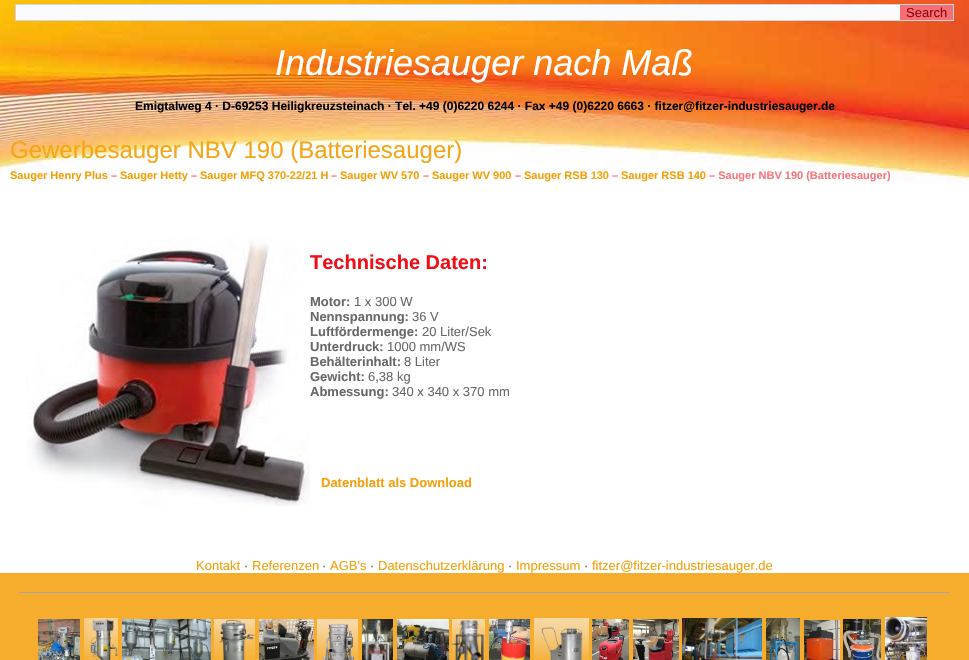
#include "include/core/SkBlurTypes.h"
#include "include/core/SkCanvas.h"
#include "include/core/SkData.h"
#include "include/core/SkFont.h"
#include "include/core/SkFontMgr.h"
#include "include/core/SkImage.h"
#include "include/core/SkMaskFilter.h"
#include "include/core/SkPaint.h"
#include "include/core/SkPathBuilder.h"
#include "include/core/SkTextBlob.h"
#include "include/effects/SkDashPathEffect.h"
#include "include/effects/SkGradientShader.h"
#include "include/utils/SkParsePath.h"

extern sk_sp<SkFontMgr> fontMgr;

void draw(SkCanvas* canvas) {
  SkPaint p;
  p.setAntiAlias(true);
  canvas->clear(SK_ColorWHITE);
  canvas->drawImageRect(SkImages::DeferredFromEncodedData(SkData::MakeFromFileName("images/1.png")), SkRect::MakeLTRB(0, 0, 969, 184), SkSamplingOptions());
  p.setColor(SkColorSetRGB(249, 250, 251));
  canvas->drawRect(SkRect::MakeLTRB(16, 5, 900, 20), p);
  p.setStyle(SkPaint::kStroke_Style);
  p.setStrokeWidth(1);
  p.setColor(SkColorSetRGB(204, 214, 224));
  canvas->drawRect(SkRect::MakeLTRB(15.5f, 4.5f, 953.5f, 20.5f), p);
  p.setStyle(SkPaint::kFill_Style);
  p.setColor(SkColorSetRGB(247, 110, 117));
  canvas->drawRect(SkRect::MakeLTRB(900, 5, 953, 20), p);
  canvas->drawImageRect(SkImages::DeferredFromEncodedData(SkData::MakeFromFileName("images/2.png")), SkRect::MakeLTRB(26, 236, 310, 506), SkSamplingOptions());
  p.setColor(SkColorSetRGB(246, 172, 44));
  canvas->drawRect(SkRect::MakeLTRB(0, 573, 969, 660), p);
  p.setColor(SkColorSetRGB(166, 166, 166));
  canvas->drawRect(SkRect::MakeLTRB(19, 592, 950, 593), p);
  canvas->drawImageRect(SkImages::DeferredFromEncodedData(SkData::MakeFromFileName("images/3.png")), SkRect::MakeLTRB(38, 619, 80, 660), SkSamplingOptions());
  canvas->drawImageRect(SkImages::DeferredFromEncodedData(SkData::MakeFromFileName("images/4.png")), SkRect::MakeLTRB(84, 618, 118, 660), SkSamplingOptions());
  canvas->drawImageRect(SkImages::DeferredFromEncodedData(SkData::MakeFromFileName("images/5.png")), SkRect::MakeLTRB(122, 619, 211, 660), SkSamplingOptions());
  canvas->drawImageRect(SkImages::DeferredFromEncodedData(SkData::MakeFromFileName("images/6.png")), SkRect::MakeLTRB(214, 619, 255, 660), SkSamplingOptions());
  canvas->drawImageRect(SkImages::DeferredFromEncodedData(SkData::MakeFromFileName("images/7.png")), SkRect::MakeLTRB(259, 619, 314, 660), SkSamplingOptions());
  canvas->drawImageRect(SkImages::DeferredFromEncodedData(SkData::MakeFromFileName("images/8.png")), SkRect::MakeLTRB(317, 619, 358, 660), SkSamplingOptions());
  canvas->drawImageRect(SkImages::DeferredFromEncodedData(SkData::MakeFromFileName("images/9.png")), SkRect::MakeLTRB(362, 619, 393, 660), SkSamplingOptions());
  canvas->drawImageRect(SkImages::DeferredFromEncodedData(SkData::MakeFromFileName("images/10.png")), SkRect::MakeLTRB(397, 619, 449, 660), SkSamplingOptions());
  canvas->drawImageRect(SkImages::DeferredFromEncodedData(SkData::MakeFromFileName("images/11.png")), SkRect::MakeLTRB(452, 619, 485, 660), SkSamplingOptions());
  canvas->drawImageRect(SkImages::DeferredFromEncodedData(SkData::MakeFromFileName("images/12.png")), SkRect::MakeLTRB(489, 619, 530, 660), SkSamplingOptions());
  canvas->drawImageRect(SkImages::DeferredFromEncodedData(SkData::MakeFromFileName("images/13.png")), SkRect::MakeLTRB(534, 618, 589, 660), SkSamplingOptions());
  canvas->drawImageRect(SkImages::DeferredFromEncodedData(SkData::MakeFromFileName("images/14.png")), SkRect::MakeLTRB(592, 619, 629, 660), SkSamplingOptions());
  canvas->drawImageRect(SkImages::DeferredFromEncodedData(SkData::MakeFromFileName("images/15.png")), SkRect::MakeLTRB(633, 619, 679, 660), SkSamplingOptions());
  canvas->drawImageRect(SkImages::DeferredFromEncodedData(SkData::MakeFromFileName("images/16.png")), SkRect::MakeLTRB(682, 618, 762, 660), SkSamplingOptions());
  canvas->drawImageRect(SkImages::DeferredFromEncodedData(SkData::MakeFromFileName("images/17.png")), SkRect::MakeLTRB(766, 618, 800, 660), SkSamplingOptions());
  canvas->drawImageRect(SkImages::DeferredFromEncodedData(SkData::MakeFromFileName("images/18.png")), SkRect::MakeLTRB(804, 620, 840, 660), SkSamplingOptions());
  canvas->drawImageRect(SkImages::DeferredFromEncodedData(SkData::MakeFromFileName("images/19.png")), SkRect::MakeLTRB(843, 619, 881, 660), SkSamplingOptions());
  canvas->drawImageRect(SkImages::DeferredFromEncodedData(SkData::MakeFromFileName("images/20.png")), SkRect::MakeLTRB(885, 617, 927, 660), SkSamplingOptions());
  SkFont font1(fontMgr->matchFamilyStyle("Liberation Sans", SkFontStyle::Normal()), 13);
  font1.setSubpixel(true);
  p.setColor(SkColorSetRGB(141, 7, 14));
  canvas->drawString("Search", 906, 17, font1, p);
  SkFont font2(fontMgr->matchFamilyStyle("Liberation Sans", SkFontStyle::Italic()), 36);
  font2.setSubpixel(true);
  p.setColor(SK_ColorWHITE);
  canvas->drawString("Industriesauger nach Maß", 275, 75, font2, p);
  SkFont font3(fontMgr->matchFamilyStyle("Liberation Sans", SkFontStyle::Bold()), 12);
  font3.setSubpixel(true);
  p.setColor(SK_ColorBLACK);
  canvas->drawString("Emigtalweg 4 · D-69253 Heiligkreuzsteinach · Tel. +49 (0)6220 6244 · Fax +49 (0)6220 6663 · fitzer@fitzer-industriesauger.de", 135, 110, font3, p);
  SkFont font4(fontMgr->matchFamilyStyle("Liberation Sans", SkFontStyle::Normal()), 24);
  font4.setSubpixel(true);
  p.setColor(SkColorSetRGB(245, 165, 25));
  canvas->drawString("Gewerbesauger NBV 190 (Batteriesauger)", 10, 158, font4, p);
  SkFont font5(fontMgr->matchFamilyStyle("Liberation Sans", SkFontStyle::Bold()), 11);
  font5.setSubpixel(true);
  p.setColor(SkColorSetRGB(245, 159, 10));
  canvas->drawString("Sauger Henry Plus", 10, 179, font5, p);
  p.setColor(SkColorSetRGB(248, 119, 126));
  canvas->drawString("–", 111, 179, font5, p);
  p.setColor(SkColorSetRGB(245, 159, 10));
  canvas->drawString("Sauger Hetty", 120, 179, font5, p);
  p.setColor(SkColorSetRGB(248, 119, 126));
  canvas->drawString("–", 191, 179, font5, p);
  p.setColor(SkColorSetRGB(245, 159, 10));
  canvas->drawString("Sauger MFQ 370-22/21 H", 200, 179, font5, p);
  p.setColor(SkColorSetRGB(248, 119, 126));
  canvas->drawString("–", 331, 179, font5, p);
  p.setColor(SkColorSetRGB(245, 159, 10));
  canvas->drawString("Sauger WV 570", 340, 179, font5, p);
  p.setColor(SkColorSetRGB(248, 119, 126));
  canvas->drawString("–", 423, 179, font5, p);
  p.setColor(SkColorSetRGB(245, 159, 10));
  canvas->drawString("Sauger WV 900", 432, 179, font5, p);
  p.setColor(SkColorSetRGB(248, 119, 126));
  canvas->drawString("–", 515, 179, font5, p);
  p.setColor(SkColorSetRGB(245, 159, 10));
  canvas->drawString("Sauger RSB 130", 524, 179, font5, p);
  p.setColor(SkColorSetRGB(248, 119, 126));
  canvas->drawString("–", 612, 179, font5, p);
  p.setColor(SkColorSetRGB(245, 159, 10));
  canvas->drawString("Sauger RSB 140", 621, 179, font5, p);
  p.setColor(SkColorSetRGB(248, 119, 126));
  canvas->drawString("– Sauger NBV 190 (Batteriesauger)", 709, 179, font5, p);
  SkFont font6(fontMgr->matchFamilyStyle("Liberation Sans", SkFontStyle::Bold()), 20);
  font6.setSubpixel(true);
  p.setColor(SkColorSetRGB(242, 13, 24));
  canvas->drawString("Technische Daten:", 310, 269, font6, p);
  SkFont font7(fontMgr->matchFamilyStyle("Liberation Sans", SkFontStyle::Bold()), 13);
  font7.setSubpixel(true);
  p.setColor(SkColorSetRGB(105, 105, 105));
  canvas->drawString("Motor:", 310, 306, font7, p);
  canvas->drawString("1 x 300 W", 354, 306, font1, p);
  canvas->drawString("Nennspannung:", 310, 321, font7, p);
  canvas->drawString("36 V", 412, 321, font1, p);
  canvas->drawString("Luftfördermenge:", 310, 336, font7, p);
  canvas->drawString("20 Liter/Sek", 422, 336, font1, p);
  canvas->drawString("Unterdruck:", 310, 351, font7, p);
  canvas->drawString("1000 mm/WS", 387, 351, font1, p);
  canvas->drawString("Behälterinhalt:", 310, 366, font7, p);
  canvas->drawString("8 Liter", 404, 366, font1, p);
  canvas->drawString("Gewicht:", 310, 381, font7, p);
  canvas->drawString("6,38 kg", 368, 381, font1, p);
  canvas->drawString("Abmessung:", 310, 396, font7, p);
  canvas->drawString("340 x 340 x 370 mm", 392, 396, font1, p);
  p.setColor(SkColorSetRGB(245, 159, 10));
  canvas->drawString("Datenblatt als Download", 321, 487, font7, p);
  canvas->drawString("Kontakt", 196, 570, font1, p);
  p.setColor(SkColorSetRGB(105, 105, 105));
  canvas->drawString("·", 244, 570, font1, p);
  p.setColor(SkColorSetRGB(245, 159, 10));
  canvas->drawString("Referenzen", 252, 570, font1, p);
  p.setColor(SkColorSetRGB(105, 105, 105));
  canvas->drawString("·", 322, 570, font1, p);
  p.setColor(SkColorSetRGB(245, 159, 10));
  canvas->drawString("AGB's", 330, 570, font1, p);
  p.setColor(SkColorSetRGB(105, 105, 105));
  canvas->drawString("·", 370, 570, font1, p);
  p.setColor(SkColorSetRGB(245, 159, 10));
  canvas->drawString("Datenschutzerklärung", 378, 570, font1, p);
  p.setColor(SkColorSetRGB(105, 105, 105));
  canvas->drawString("·", 508, 570, font1, p);
  p.setColor(SkColorSetRGB(245, 159, 10));
  canvas->drawString("Impressum", 516, 570, font1, p);
  p.setColor(SkColorSetRGB(105, 105, 105));
  canvas->drawString("·", 584, 570, font1, p);
  p.setColor(SkColorSetRGB(245, 159, 10));
  canvas->drawString("fitzer@fitzer-industriesauger.de", 592, 570, font1, p);
}
